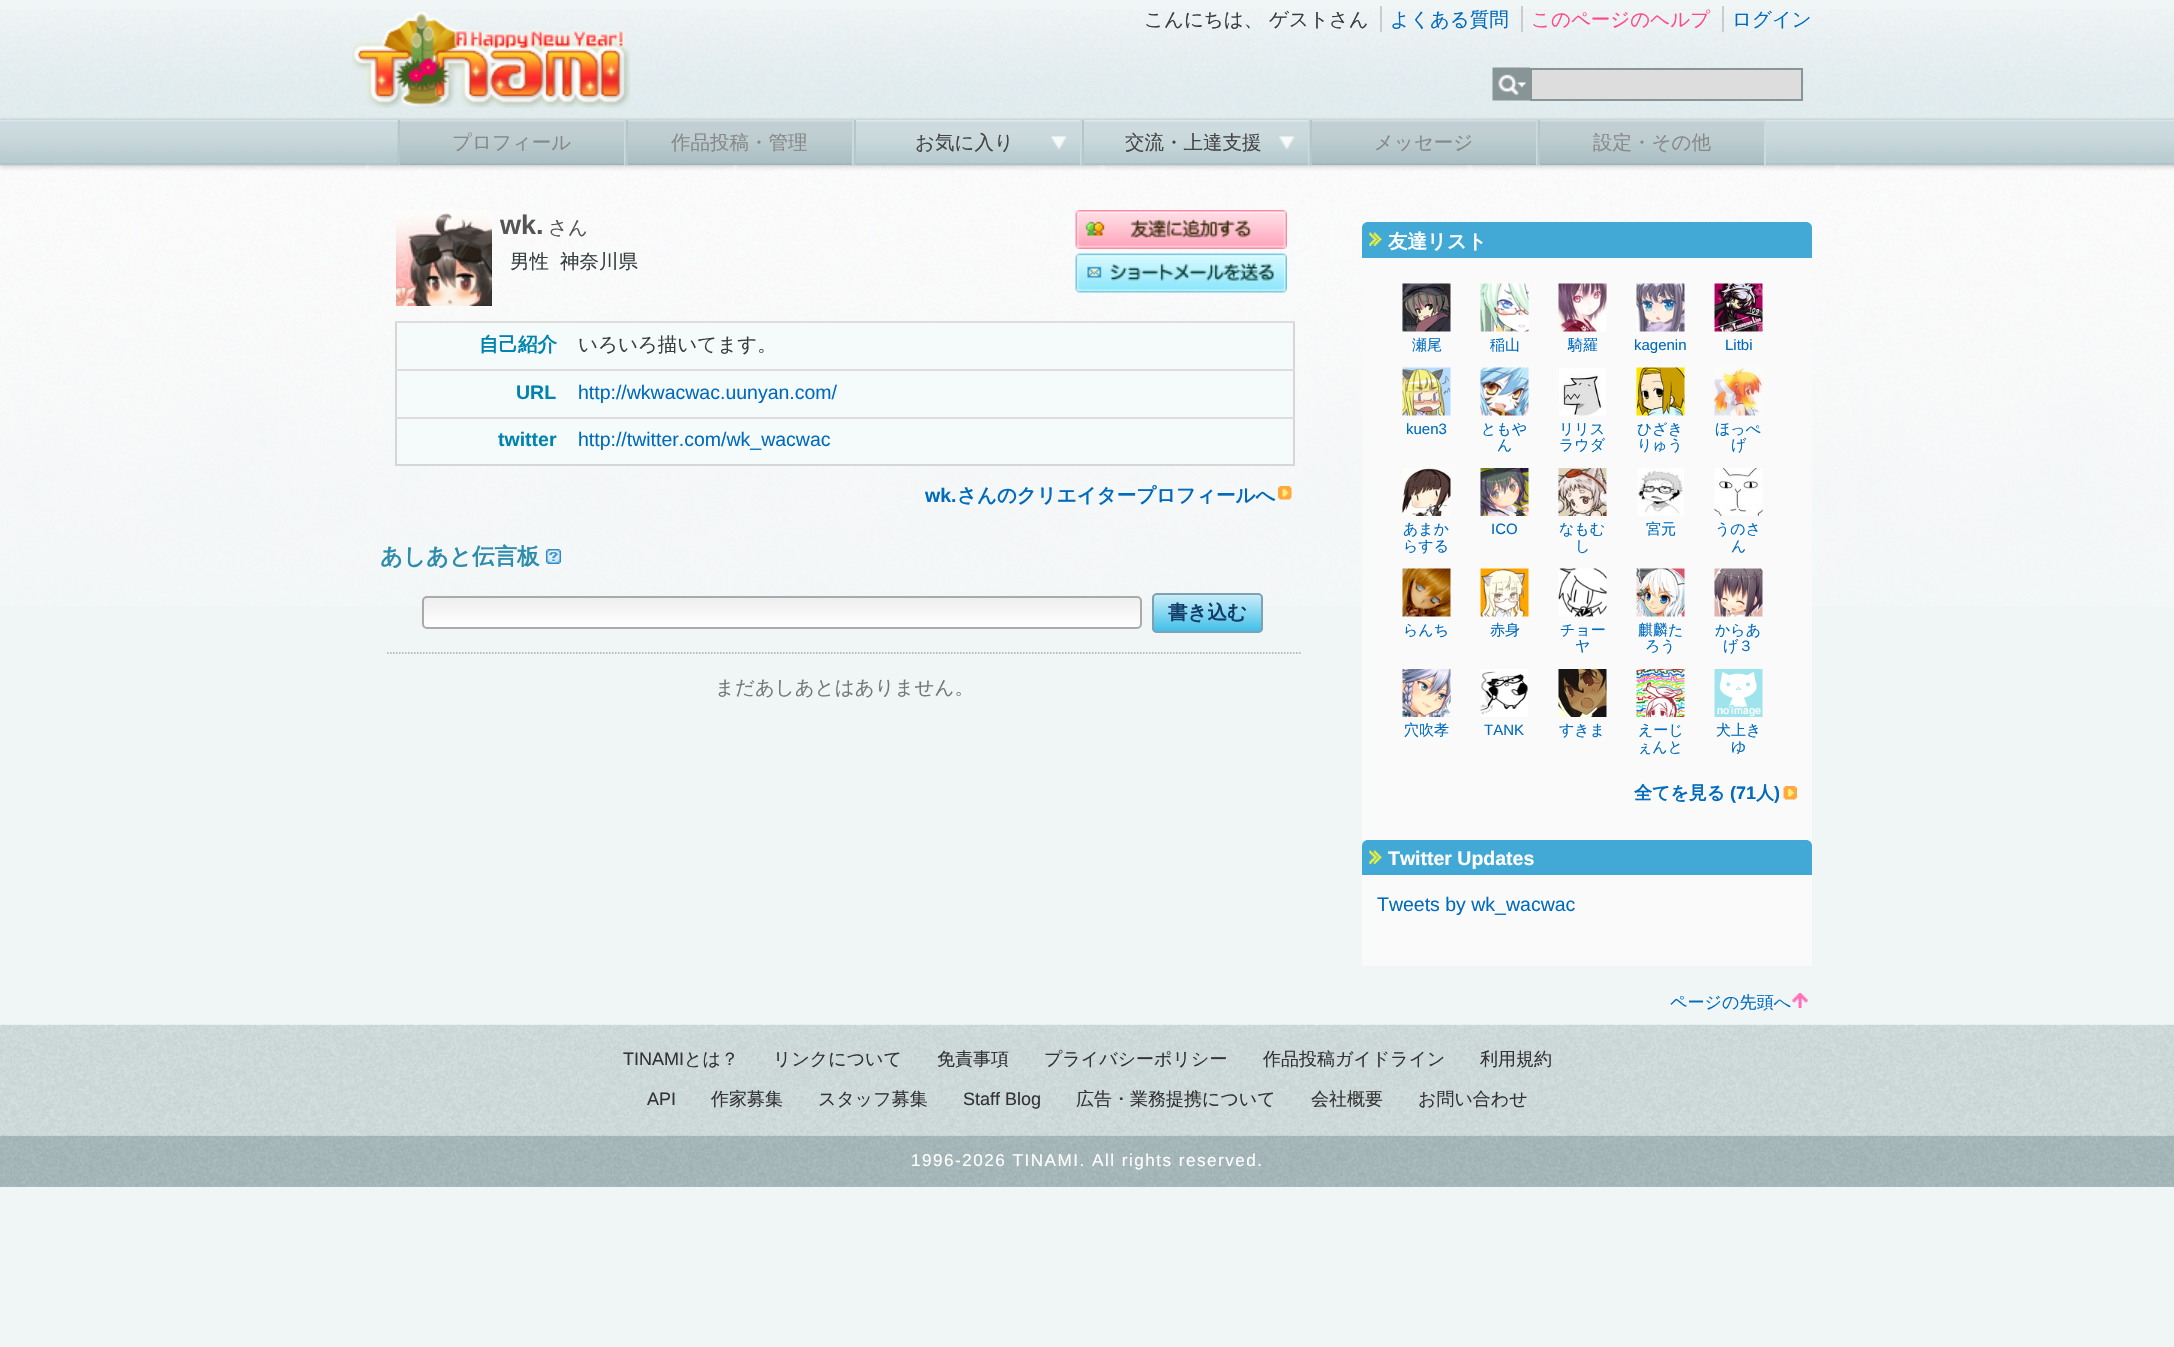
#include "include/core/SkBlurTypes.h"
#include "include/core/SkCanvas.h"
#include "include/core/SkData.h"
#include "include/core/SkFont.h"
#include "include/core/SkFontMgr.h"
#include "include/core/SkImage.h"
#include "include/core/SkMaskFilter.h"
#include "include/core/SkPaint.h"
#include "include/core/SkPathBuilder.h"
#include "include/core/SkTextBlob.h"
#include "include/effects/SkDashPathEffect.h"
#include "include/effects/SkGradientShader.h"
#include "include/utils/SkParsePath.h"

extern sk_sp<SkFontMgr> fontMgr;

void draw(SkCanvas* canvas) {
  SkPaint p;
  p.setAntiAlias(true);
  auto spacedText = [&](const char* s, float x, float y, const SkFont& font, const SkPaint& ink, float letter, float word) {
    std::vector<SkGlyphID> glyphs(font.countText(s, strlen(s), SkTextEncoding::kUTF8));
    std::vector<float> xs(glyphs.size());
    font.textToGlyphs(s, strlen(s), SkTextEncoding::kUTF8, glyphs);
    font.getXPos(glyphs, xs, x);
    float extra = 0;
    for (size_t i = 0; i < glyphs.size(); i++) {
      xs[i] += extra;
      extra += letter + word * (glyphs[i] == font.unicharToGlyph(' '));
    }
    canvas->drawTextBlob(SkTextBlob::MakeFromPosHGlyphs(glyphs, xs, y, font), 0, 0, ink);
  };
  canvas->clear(SkColorSetRGB(240, 245, 246));
  canvas->drawImageRect(SkImages::DeferredFromEncodedData(SkData::MakeFromFileName("images/1.png")), SkRect::MakeLTRB(0, 9, 2174, 606), SkSamplingOptions());
  canvas->drawImageRect(SkImages::DeferredFromEncodedData(SkData::MakeFromFileName("images/2.png")), SkRect::MakeLTRB(352, 11, 630, 108), SkSamplingOptions());
  p.setColor(SkColorSetRGB(204, 204, 204));
  canvas->drawRect(SkRect::MakeLTRB(1380, 6, 1382, 32), p);
  canvas->drawRect(SkRect::MakeLTRB(1521, 6, 1523, 32), p);
  canvas->drawRect(SkRect::MakeLTRB(1722, 6, 1724, 32), p);
  canvas->drawImageRect(SkImages::DeferredFromEncodedData(SkData::MakeFromFileName("images/3.png")), SkRect::MakeLTRB(1492, 67, 1530, 101), SkSamplingOptions());
  p.setColor(SkColorSetRGB(221, 221, 221));
  canvas->drawRect(SkRect::MakeLTRB(1531, 69, 1802, 100), p);
  p.setStyle(SkPaint::kStroke_Style);
  p.setStrokeWidth(2);
  p.setColor(SkColorSetRGB(136, 149, 151));
  canvas->drawRect(SkRect::MakeLTRB(1531, 69, 1802, 100), p);
  canvas->drawImageRect(SkImages::DeferredFromEncodedData(SkData::MakeFromFileName("images/4.png")), SkRect::MakeLTRB(397, 120, 624, 165), SkSamplingOptions());
  p.setStyle(SkPaint::kFill_Style);
  p.setColor(SkColorSetRGB(205, 219, 224));
  canvas->drawRect(SkRect::MakeLTRB(624, 120, 626, 165), p);
  p.setColor(SkColorSetRGB(180, 199, 203));
  canvas->drawRect(SkRect::MakeLTRB(398, 120, 400, 165), p);
  canvas->drawImageRect(SkImages::DeferredFromEncodedData(SkData::MakeFromFileName("images/5.png")), SkRect::MakeLTRB(625, 120, 852, 165), SkSamplingOptions());
  p.setColor(SkColorSetRGB(205, 219, 224));
  canvas->drawRect(SkRect::MakeLTRB(852, 120, 854, 165), p);
  p.setColor(SkColorSetRGB(180, 199, 203));
  canvas->drawRect(SkRect::MakeLTRB(626, 120, 628, 165), p);
  canvas->drawImageRect(SkImages::DeferredFromEncodedData(SkData::MakeFromFileName("images/6.png")), SkRect::MakeLTRB(853, 120, 1080, 165), SkSamplingOptions());
  p.setColor(SkColorSetRGB(205, 219, 224));
  canvas->drawRect(SkRect::MakeLTRB(1080, 120, 1082, 165), p);
  p.setColor(SkColorSetRGB(180, 199, 203));
  canvas->drawRect(SkRect::MakeLTRB(854, 120, 856, 165), p);
  canvas->drawImageRect(SkImages::DeferredFromEncodedData(SkData::MakeFromFileName("images/7.png")), SkRect::MakeLTRB(1081, 120, 1308, 165), SkSamplingOptions());
  p.setColor(SkColorSetRGB(205, 219, 224));
  canvas->drawRect(SkRect::MakeLTRB(1308, 120, 1310, 165), p);
  p.setColor(SkColorSetRGB(180, 199, 203));
  canvas->drawRect(SkRect::MakeLTRB(1082, 120, 1084, 165), p);
  canvas->drawImageRect(SkImages::DeferredFromEncodedData(SkData::MakeFromFileName("images/8.png")), SkRect::MakeLTRB(1309, 120, 1536, 165), SkSamplingOptions());
  p.setColor(SkColorSetRGB(205, 219, 224));
  canvas->drawRect(SkRect::MakeLTRB(1536, 120, 1538, 165), p);
  p.setColor(SkColorSetRGB(180, 199, 203));
  canvas->drawRect(SkRect::MakeLTRB(1310, 120, 1312, 165), p);
  canvas->drawImageRect(SkImages::DeferredFromEncodedData(SkData::MakeFromFileName("images/9.png")), SkRect::MakeLTRB(1537, 120, 1764, 165), SkSamplingOptions());
  p.setColor(SkColorSetRGB(205, 219, 224));
  canvas->drawRect(SkRect::MakeLTRB(1764, 120, 1766, 165), p);
  p.setColor(SkColorSetRGB(180, 199, 203));
  canvas->drawRect(SkRect::MakeLTRB(1538, 120, 1540, 165), p);
  canvas->drawImageRect(SkImages::DeferredFromEncodedData(SkData::MakeFromFileName("images/10.png")), SkRect::MakeLTRB(396, 210, 492, 306), SkSamplingOptions());
  canvas->drawImageRect(SkImages::DeferredFromEncodedData(SkData::MakeFromFileName("images/11.png")), SkRect::MakeLTRB(1075, 210, 1287, 249), SkSamplingOptions());
  canvas->drawImageRect(SkImages::DeferredFromEncodedData(SkData::MakeFromFileName("images/12.png")), SkRect::MakeLTRB(1075, 253, 1287, 293), SkSamplingOptions());
  p.setColor(SkColorSetRGB(245, 251, 251));
  canvas->drawRect(SkRect::MakeLTRB(397, 323, 1293, 464), p);
  p.setColor(SkColorSetRGB(214, 214, 214));
  canvas->drawRect(SkRect::MakeLTRB(1293, 321, 1295, 465), p);
  canvas->drawRect(SkRect::MakeLTRB(395, 464, 1295, 466), p);
  canvas->drawRect(SkRect::MakeLTRB(395, 321, 397, 465), p);
  p.setColor(SkColorSetRGB(221, 221, 221));
  canvas->drawRect(SkRect::MakeLTRB(395, 321, 1295, 323), p);
  canvas->drawRect(SkRect::MakeLTRB(395, 369, 1295, 371), p);
  canvas->drawRect(SkRect::MakeLTRB(395, 417, 1295, 419), p);
  canvas->drawImageRect(SkImages::DeferredFromEncodedData(SkData::MakeFromFileName("images/13.png")), SkRect::MakeLTRB(1278, 486, 1292, 500), SkSamplingOptions());
  canvas->drawImageRect(SkImages::DeferredFromEncodedData(SkData::MakeFromFileName("images/14.png")), SkRect::MakeLTRB(546, 549, 561, 564), SkSamplingOptions());
  canvas->save();
  canvas->clipPath(SkPathBuilder().moveTo(427, 596).lineTo(1137, 596).cubicTo(1140, 596, 1142, 598, 1142, 601).lineTo(1142, 624).cubicTo(1142, 627, 1140, 629, 1137, 629).lineTo(427, 629).cubicTo(424, 629, 422, 627, 422, 624).lineTo(422, 601).cubicTo(422, 598, 424, 596, 427, 596).close().detach(), true);
  {
    const SkColor colors[] = {SkColorSetRGB(238, 238, 238), SK_ColorWHITE};
    const float stops[] = {0, 1};
    const SkPoint ends[] = {{423, 597}, {423, 627}};
    p.setShader(SkGradientShader::MakeLinear(ends, colors, stops, 2, SkTileMode::kClamp));
    p.setAlpha(255);
  }
  canvas->drawRect(SkRect::MakeLTRB(422, 597, 1142, 627), p);
  canvas->restore();
  p.setStyle(SkPaint::kStroke_Style);
  p.setShader(nullptr);
  p.setColor(SkColorSetRGB(170, 170, 170));
  canvas->drawRoundRect(SkRect::MakeLTRB(423, 597, 1141, 628), 4, 4, p);
  p.setStyle(SkPaint::kFill_Style);
  p.setColor(SkColorSetRGB(18, 176, 228));
  canvas->drawRoundRect(SkRect::MakeLTRB(1152, 593, 1263, 633), 5, 5, p);
  canvas->drawImageRect(SkImages::DeferredFromEncodedData(SkData::MakeFromFileName("images/15.png")), SkRect::MakeLTRB(1152, 593, 1263, 633), SkSamplingOptions());
  p.setStyle(SkPaint::kStroke_Style);
  p.setColor(SkColorSetRGB(127, 161, 177));
  canvas->drawRoundRect(SkRect::MakeLTRB(1153, 594, 1262, 632), 4, 4, p);
  p.setStrokeWidth(1.5f);
  p.setColor(SkColorSetRGB(170, 170, 170));
  p.setPathEffect(SkDashPathEffect::Make({{1.5f, 1.5f}}, 0));
  canvas->drawPath(SkPathBuilder().moveTo(387, 653).lineTo(1302, 653).detach(), p);
  p.setPathEffect(nullptr);
  p.setStyle(SkPaint::kFill_Style);
  p.setColor(SkColorSetRGB(250, 250, 250));
  canvas->drawRect(SkRect::MakeLTRB(1362, 222, 1812, 966), p);
  p.setColor(SkColorSetRGB(66, 169, 214));
  canvas->drawPath(SkPathBuilder().moveTo(1368, 222).lineTo(1806, 222).cubicTo(1809.5f, 222, 1812, 224.5f, 1812, 228).lineTo(1812, 258).lineTo(1362, 258).lineTo(1362, 228).cubicTo(1362, 224.5f, 1364.5f, 222, 1368, 222).close().detach(), p);
  canvas->drawImageRect(SkImages::DeferredFromEncodedData(SkData::MakeFromFileName("images/16.png")), SkRect::MakeLTRB(1369, 232, 1382, 246), SkSamplingOptions());
  canvas->drawImageRect(SkImages::DeferredFromEncodedData(SkData::MakeFromFileName("images/17.png")), SkRect::MakeLTRB(1402, 283, 1451, 332), SkSamplingOptions());
  canvas->drawImageRect(SkImages::DeferredFromEncodedData(SkData::MakeFromFileName("images/18.png")), SkRect::MakeLTRB(1480, 283, 1529, 332), SkSamplingOptions());
  canvas->drawImageRect(SkImages::DeferredFromEncodedData(SkData::MakeFromFileName("images/19.png")), SkRect::MakeLTRB(1558, 283, 1607, 332), SkSamplingOptions());
  canvas->drawImageRect(SkImages::DeferredFromEncodedData(SkData::MakeFromFileName("images/20.png")), SkRect::MakeLTRB(1636, 283, 1685, 332), SkSamplingOptions());
  canvas->drawImageRect(SkImages::DeferredFromEncodedData(SkData::MakeFromFileName("images/21.png")), SkRect::MakeLTRB(1714, 283, 1763, 332), SkSamplingOptions());
  canvas->drawImageRect(SkImages::DeferredFromEncodedData(SkData::MakeFromFileName("images/22.png")), SkRect::MakeLTRB(1402, 367, 1451, 416), SkSamplingOptions());
  canvas->drawImageRect(SkImages::DeferredFromEncodedData(SkData::MakeFromFileName("images/23.png")), SkRect::MakeLTRB(1480, 367, 1529, 416), SkSamplingOptions());
  canvas->drawImageRect(SkImages::DeferredFromEncodedData(SkData::MakeFromFileName("images/24.png")), SkRect::MakeLTRB(1559, 368, 1606, 416), SkSamplingOptions());
  canvas->drawImageRect(SkImages::DeferredFromEncodedData(SkData::MakeFromFileName("images/25.png")), SkRect::MakeLTRB(1636, 367, 1685, 416), SkSamplingOptions());
  canvas->drawImageRect(SkImages::DeferredFromEncodedData(SkData::MakeFromFileName("images/26.png")), SkRect::MakeLTRB(1714, 367, 1763, 416), SkSamplingOptions());
  canvas->drawImageRect(SkImages::DeferredFromEncodedData(SkData::MakeFromFileName("images/27.png")), SkRect::MakeLTRB(1402, 468, 1451, 516), SkSamplingOptions());
  canvas->drawImageRect(SkImages::DeferredFromEncodedData(SkData::MakeFromFileName("images/28.png")), SkRect::MakeLTRB(1480, 468, 1529, 516), SkSamplingOptions());
  canvas->drawImageRect(SkImages::DeferredFromEncodedData(SkData::MakeFromFileName("images/29.png")), SkRect::MakeLTRB(1558, 468, 1607, 516), SkSamplingOptions());
  canvas->drawImageRect(SkImages::DeferredFromEncodedData(SkData::MakeFromFileName("images/30.png")), SkRect::MakeLTRB(1637, 468, 1684, 516), SkSamplingOptions());
  canvas->drawImageRect(SkImages::DeferredFromEncodedData(SkData::MakeFromFileName("images/31.png")), SkRect::MakeLTRB(1714, 468, 1763, 516), SkSamplingOptions());
  canvas->drawImageRect(SkImages::DeferredFromEncodedData(SkData::MakeFromFileName("images/32.png")), SkRect::MakeLTRB(1402, 568, 1451, 617), SkSamplingOptions());
  canvas->drawImageRect(SkImages::DeferredFromEncodedData(SkData::MakeFromFileName("images/33.png")), SkRect::MakeLTRB(1480, 568, 1529, 617), SkSamplingOptions());
  canvas->drawImageRect(SkImages::DeferredFromEncodedData(SkData::MakeFromFileName("images/34.png")), SkRect::MakeLTRB(1558, 568, 1607, 617), SkSamplingOptions());
  canvas->drawImageRect(SkImages::DeferredFromEncodedData(SkData::MakeFromFileName("images/35.png")), SkRect::MakeLTRB(1636, 568, 1685, 617), SkSamplingOptions());
  canvas->drawImageRect(SkImages::DeferredFromEncodedData(SkData::MakeFromFileName("images/36.png")), SkRect::MakeLTRB(1714, 568, 1763, 617), SkSamplingOptions());
  canvas->drawImageRect(SkImages::DeferredFromEncodedData(SkData::MakeFromFileName("images/37.png")), SkRect::MakeLTRB(1402, 669, 1451, 717), SkSamplingOptions());
  canvas->drawImageRect(SkImages::DeferredFromEncodedData(SkData::MakeFromFileName("images/38.png")), SkRect::MakeLTRB(1480, 669, 1528, 717), SkSamplingOptions());
  canvas->drawImageRect(SkImages::DeferredFromEncodedData(SkData::MakeFromFileName("images/39.png")), SkRect::MakeLTRB(1558, 669, 1607, 717), SkSamplingOptions());
  canvas->drawImageRect(SkImages::DeferredFromEncodedData(SkData::MakeFromFileName("images/40.png")), SkRect::MakeLTRB(1636, 669, 1685, 717), SkSamplingOptions());
  canvas->drawImageRect(SkImages::DeferredFromEncodedData(SkData::MakeFromFileName("images/41.png")), SkRect::MakeLTRB(1714, 669, 1763, 717), SkSamplingOptions());
  canvas->drawImageRect(SkImages::DeferredFromEncodedData(SkData::MakeFromFileName("images/42.png")), SkRect::MakeLTRB(1783, 786, 1797, 800), SkSamplingOptions());
  canvas->drawPath(SkPathBuilder().moveTo(1368, 840).lineTo(1806, 840).cubicTo(1809.5f, 840, 1812, 842.5f, 1812, 846).lineTo(1812, 875).lineTo(1362, 875).lineTo(1362, 846).cubicTo(1362, 842.5f, 1364.5f, 840, 1368, 840).close().detach(), p);
  canvas->drawImageRect(SkImages::DeferredFromEncodedData(SkData::MakeFromFileName("images/16.png")), SkRect::MakeLTRB(1369, 850, 1382, 864), SkSamplingOptions());
  canvas->drawImageRect(SkImages::DeferredFromEncodedData(SkData::MakeFromFileName("images/43.png")), SkRect::MakeLTRB(1792, 993, 1808, 1008), SkSamplingOptions());
  p.setColor(SkColorSetRGB(214, 226, 227));
  canvas->drawRect(SkRect::MakeLTRB(0, 1025, 2174, 1136), p);
  canvas->drawImageRect(SkImages::DeferredFromEncodedData(SkData::MakeFromFileName("images/44.png")), SkRect::MakeLTRB(0, 1024, 2174, 1136), SkSamplingOptions());
  p.setColor(SkColorSetRGB(169, 188, 191));
  canvas->drawRect(SkRect::MakeLTRB(0, 1136, 2174, 1187), p);
  canvas->drawImageRect(SkImages::DeferredFromEncodedData(SkData::MakeFromFileName("images/45.png")), SkRect::MakeLTRB(0, 1135, 2174, 1187), SkSamplingOptions());
  SkFont font1(fontMgr->matchFamilyStyle("WenQuanYi Zen Hei", SkFontStyle(500, SkFontStyle::kNormal_Width, SkFontStyle::kUpright_Slant)), 19.5f);
  font1.setSubpixel(true);
  p.setColor(SkColorSetRGB(54, 63, 63));
  canvas->drawString("こんにちは、", 1144, 26, font1, p);
  canvas->drawString("ゲストさん", 1269, 26, font1, p);
  p.setColor(SkColorSetRGB(0, 107, 190));
  canvas->drawString("よくある質問", 1390, 26, font1, p);
  p.setColor(SkColorSetRGB(255, 75, 133));
  canvas->drawString("このページのヘルプ", 1531, 26, font1, p);
  p.setColor(SkColorSetRGB(0, 107, 190));
  canvas->drawString("ログイン", 1732, 26, font1, p);
  p.setColor(SkColorSetRGB(136, 136, 136));
  canvas->drawString("プロフィール", 452, 149, font1, p);
  canvas->drawString("作品投稿・管理", 671, 149, font1, p);
  p.setColor(SkColorSetRGB(68, 68, 68));
  canvas->drawString("お気に入り", 915, 149, font1, p);
  canvas->drawString("交流・上達支援", 1125, 149, font1, p);
  p.setColor(SkColorSetRGB(136, 136, 136));
  canvas->drawString("メッセージ", 1374, 149, font1, p);
  canvas->drawString("設定・その他", 1593, 149, font1, p);
  SkFont font2(fontMgr->matchFamilyStyle("Liberation Sans", SkFontStyle::Bold()), 27);
  font2.setSubpixel(true);
  p.setColor(SkColorSetRGB(85, 85, 85));
  canvas->drawString("wk.", 500, 234, font2, p);
  canvas->drawString("さん", 548, 234, font1, p);
  p.setColor(SkColorSetRGB(54, 63, 63));
  canvas->drawString("男性", 510, 268, font1, p);
  canvas->drawString("神奈川県", 560, 268, font1, p);
  SkFont font3(fontMgr->matchFamilyStyle("WenQuanYi Zen Hei", SkFontStyle::Bold()), 19.5f);
  font3.setSubpixel(true);
  p.setColor(SkColorSetRGB(0, 131, 174));
  canvas->drawString("自己紹介", 479, 351, font3, p);
  p.setColor(SkColorSetRGB(54, 63, 63));
  canvas->drawString("いろいろ描いてます。", 578, 351, font1, p);
  SkFont font4(fontMgr->matchFamilyStyle("Liberation Sans", SkFontStyle::Bold()), 19.5f);
  font4.setSubpixel(true);
  p.setColor(SkColorSetRGB(0, 131, 174));
  canvas->drawString("URL", 516, 399, font4, p);
  SkFont font5(fontMgr->matchFamilyStyle("Liberation Sans", SkFontStyle::Normal()), 19.5f);
  font5.setSubpixel(true);
  p.setColor(SkColorSetRGB(0, 107, 190));
  canvas->drawString("http://wkwacwac.uunyan.com/", 578, 399, font5, p);
  p.setColor(SkColorSetRGB(0, 131, 174));
  canvas->drawString("twitter", 498, 446, font4, p);
  p.setColor(SkColorSetRGB(0, 107, 190));
  canvas->drawString("http://twitter.com/wk_wacwac", 578, 446, font5, p);
  canvas->drawString("wk.", 925, 502, font4, p);
  canvas->drawString("さんのクリエイタープロフィールへ", 957, 502, font3, p);
  SkFont font6(fontMgr->matchFamilyStyle("WenQuanYi Zen Hei", SkFontStyle::Bold()), 22.5f);
  font6.setSubpixel(true);
  p.setColor(SkColorSetRGB(44, 140, 171));
  canvas->drawString("あしあと伝言板", 380, 564, font6, p);
  p.setColor(SkColorSetRGB(19, 61, 104));
  canvas->drawString("書き込む", 1168, 619, font3, p);
  p.setColor(SkColorSetRGB(119, 119, 119));
  canvas->drawString("まだあしあとはありません。", 715, 694, font1, p);
  p.setColor(SK_ColorWHITE);
  canvas->drawString("友達リスト", 1388, 248, font3, p);
  SkFont font7(fontMgr->matchFamilyStyle("WenQuanYi Zen Hei", SkFontStyle(500, SkFontStyle::kNormal_Width, SkFontStyle::kUpright_Slant)), 15);
  font7.setSubpixel(true);
  p.setColor(SkColorSetRGB(0, 107, 190));
  canvas->drawString("瀬尾", 1412, 350, font7, p);
  canvas->drawString("稲山", 1490, 350, font7, p);
  canvas->drawString("騎羅", 1568, 350, font7, p);
  SkFont font8(fontMgr->matchFamilyStyle("Liberation Sans", SkFontStyle::Normal()), 15);
  font8.setSubpixel(true);
  canvas->drawString("kagenin", 1634, 350, font8, p);
  canvas->drawString("Litbi", 1725, 350, font8, p);
  canvas->drawString("kuen3", 1406, 434, font8, p);
  canvas->drawString("ともや", 1481, 434, font7, p);
  canvas->drawString("ん", 1497, 450, font7, p);
  canvas->drawString("リリス", 1559, 434, font7, p);
  canvas->drawString("ラウダ", 1559, 450, font7, p);
  canvas->drawString("ひざき", 1637, 434, font7, p);
  canvas->drawString("りゅう", 1637, 450, font7, p);
  canvas->drawString("ほっぺ", 1715, 434, font7, p);
  canvas->drawString("げ", 1731, 450, font7, p);
  canvas->drawString("あまか", 1403, 534, font7, p);
  canvas->drawString("らする", 1403, 551, font7, p);
  canvas->drawString("ICO", 1491, 534, font8, p);
  canvas->drawString("なもむ", 1559, 534, font7, p);
  canvas->drawString("し", 1575, 551, font7, p);
  canvas->drawString("宮元", 1646, 534, font7, p);
  canvas->drawString("うのさ", 1715, 534, font7, p);
  canvas->drawString("ん", 1731, 551, font7, p);
  canvas->drawString("らんち", 1403, 635, font7, p);
  canvas->drawString("赤身", 1490, 635, font7, p);
  canvas->drawString("チョー", 1560, 635, font7, p);
  canvas->drawString("ヤ", 1575, 651, font7, p);
  canvas->drawString("麒麟た", 1638, 635, font7, p);
  canvas->drawString("ろう", 1645, 651, font7, p);
  canvas->drawString("からあ", 1715, 635, font7, p);
  canvas->drawString("げ３", 1723, 651, font7, p);
  canvas->drawString("穴吹孝", 1404, 735, font7, p);
  canvas->drawString("TANK", 1484, 735, font8, p);
  canvas->drawString("すきま", 1559, 735, font7, p);
  canvas->drawString("えーじ", 1638, 735, font7, p);
  canvas->drawString("ぇんと", 1637, 752, font7, p);
  canvas->drawString("犬上き", 1716, 735, font7, p);
  canvas->drawString("ゆ", 1731, 752, font7, p);
  SkFont font9(fontMgr->matchFamilyStyle("WenQuanYi Zen Hei", SkFontStyle::Bold()), 18);
  font9.setSubpixel(true);
  canvas->drawString("全てを見る", 1634, 799, font9, p);
  SkFont font10(fontMgr->matchFamilyStyle("Liberation Sans", SkFontStyle::Bold()), 18);
  font10.setSubpixel(true);
  canvas->drawString("(71", 1730, 799, font10, p);
  canvas->drawString("人", 1756, 799, font9, p);
  canvas->drawString(")", 1774, 799, font10, p);
  p.setColor(SK_ColorWHITE);
  canvas->drawString("Twitter Updates", 1388, 865, font4, p);
  p.setColor(SkColorSetRGB(0, 107, 190));
  canvas->drawString("Tweets by wk_wacwac", 1377, 911, font5, p);
  SkFont font11(fontMgr->matchFamilyStyle("WenQuanYi Zen Hei", SkFontStyle(500, SkFontStyle::kNormal_Width, SkFontStyle::kUpright_Slant)), 17.1f);
  font11.setSubpixel(true);
  canvas->drawString("ページの先頭へ", 1670, 1008, font11, p);
  SkFont font12(fontMgr->matchFamilyStyle("Liberation Sans", SkFontStyle::Normal()), 18);
  font12.setSubpixel(true);
  p.setColor(SkColorSetRGB(51, 51, 51));
  canvas->drawString("TINAMI", 623, 1065, font12, p);
  SkFont font13(fontMgr->matchFamilyStyle("WenQuanYi Zen Hei", SkFontStyle(500, SkFontStyle::kNormal_Width, SkFontStyle::kUpright_Slant)), 18);
  font13.setSubpixel(true);
  canvas->drawString("とは？", 684, 1065, font13, p);
  canvas->drawString("リンクについて", 773, 1065, font13, p);
  canvas->drawString("免責事項", 937, 1065, font13, p);
  canvas->drawString("プライバシーポリシー", 1044, 1065, font13, p);
  canvas->drawString("作品投稿ガイドライン", 1263, 1065, font13, p);
  canvas->drawString("利用規約", 1480, 1065, font13, p);
  canvas->drawString("API", 647, 1105, font12, p);
  canvas->drawString("作家募集", 711, 1105, font13, p);
  canvas->drawString("スタッフ募集", 818, 1105, font13, p);
  canvas->drawString("Staff Blog", 963, 1105, font12, p);
  canvas->drawString("広告・業務提携について", 1076, 1105, font13, p);
  canvas->drawString("会社概要", 1311, 1105, font13, p);
  canvas->drawString("お問い合わせ", 1418, 1105, font13, p);
  SkFont font14(fontMgr->matchFamilyStyle("Liberation Sans", SkFontStyle::Normal()), 17.1f);
  font14.setSubpixel(true);
  p.setColor(SK_ColorWHITE);
  spacedText("1996-2026 TINAMI. All rights reserved.", 911, 1166, font14, p, 1.5f, 0);
}
